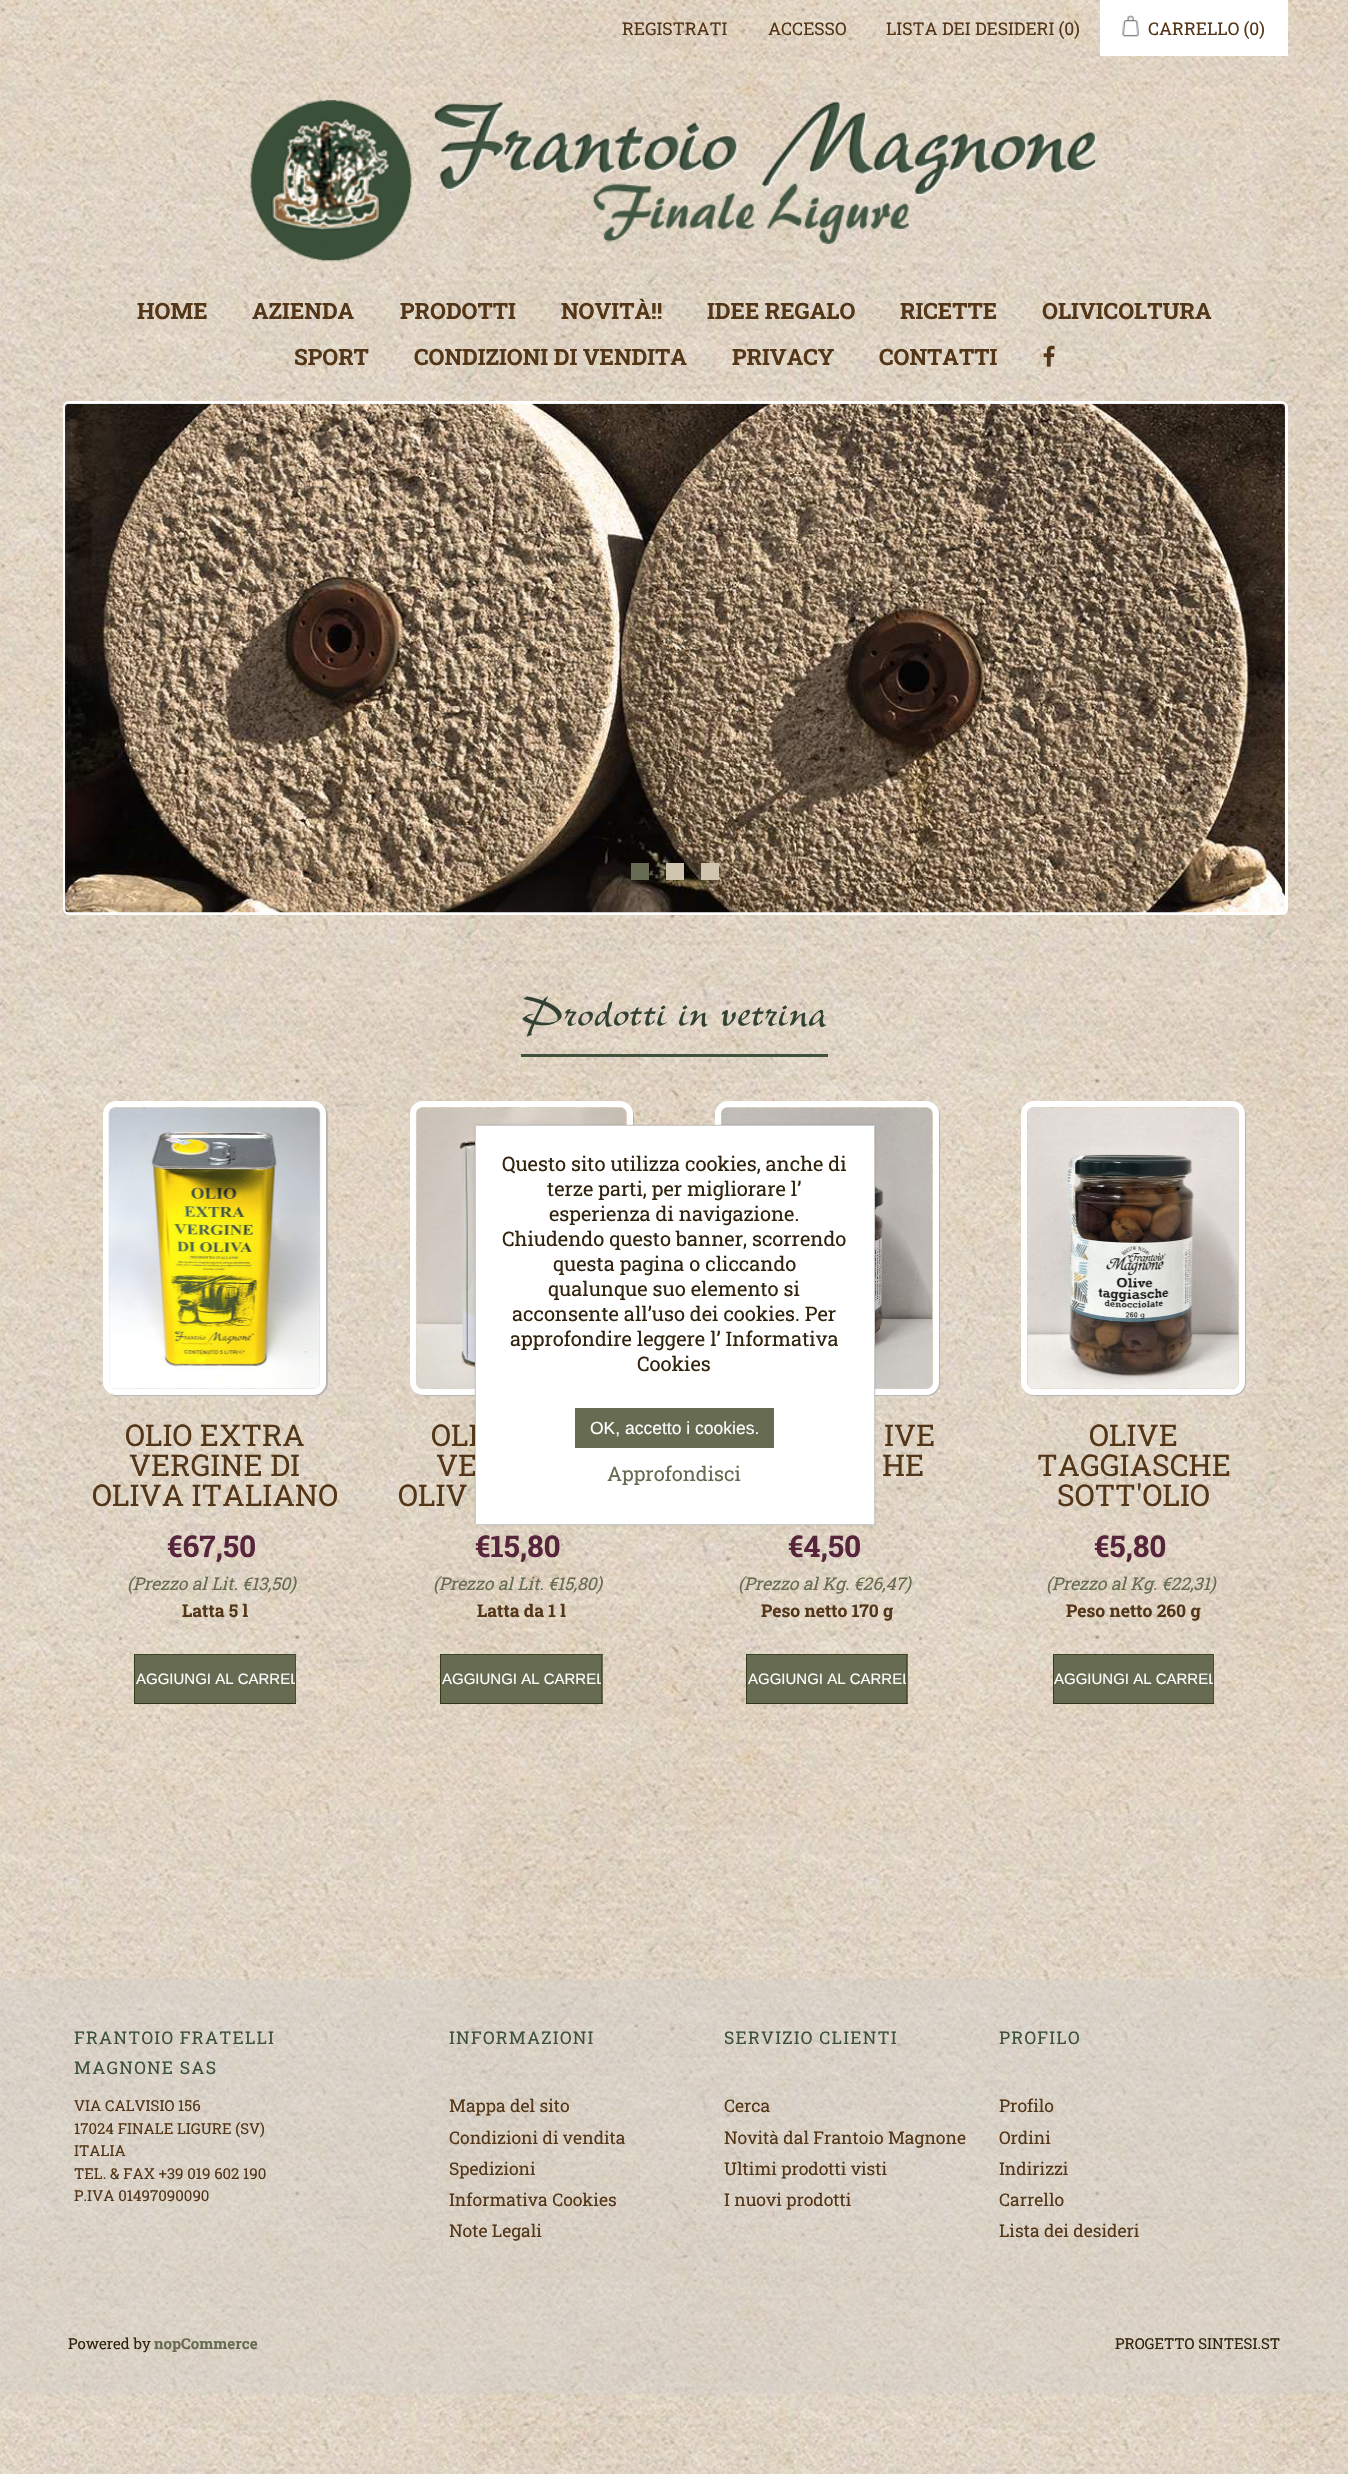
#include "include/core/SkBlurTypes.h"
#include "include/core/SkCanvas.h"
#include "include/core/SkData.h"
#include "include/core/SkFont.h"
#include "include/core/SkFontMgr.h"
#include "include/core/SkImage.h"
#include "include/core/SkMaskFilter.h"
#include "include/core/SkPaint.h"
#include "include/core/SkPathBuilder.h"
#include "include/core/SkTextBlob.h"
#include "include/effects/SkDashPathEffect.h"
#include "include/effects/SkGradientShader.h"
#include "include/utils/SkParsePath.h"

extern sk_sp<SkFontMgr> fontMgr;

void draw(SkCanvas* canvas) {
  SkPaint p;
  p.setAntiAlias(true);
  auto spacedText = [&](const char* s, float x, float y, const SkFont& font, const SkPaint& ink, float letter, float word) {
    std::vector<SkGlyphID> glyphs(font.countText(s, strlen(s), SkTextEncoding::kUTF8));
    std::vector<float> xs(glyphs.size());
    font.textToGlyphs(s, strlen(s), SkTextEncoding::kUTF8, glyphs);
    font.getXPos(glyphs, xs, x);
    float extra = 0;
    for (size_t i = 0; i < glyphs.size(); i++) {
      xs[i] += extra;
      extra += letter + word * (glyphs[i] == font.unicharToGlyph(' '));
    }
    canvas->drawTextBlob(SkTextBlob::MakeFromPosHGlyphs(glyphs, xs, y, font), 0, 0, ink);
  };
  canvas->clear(SK_ColorWHITE);
  canvas->drawImageRect(SkImages::DeferredFromEncodedData(SkData::MakeFromFileName("images/1.png")), SkRect::MakeLTRB(0, 0, 1348, 2474), SkSamplingOptions());
  p.setColor(SK_ColorWHITE);
  canvas->drawRect(SkRect::MakeLTRB(1100, 0, 1288, 56), p);
  canvas->drawImageRect(SkImages::DeferredFromEncodedData(SkData::MakeFromFileName("images/2.png")), SkRect::MakeLTRB(1122, 15, 1139, 37), SkSamplingOptions());
  canvas->drawImageRect(SkImages::DeferredFromEncodedData(SkData::MakeFromFileName("images/3.png")), SkRect::MakeLTRB(250, 100, 1098, 262), SkSamplingOptions());
  canvas->drawImageRect(SkImages::DeferredFromEncodedData(SkData::MakeFromFileName("images/4.png")), SkRect::MakeLTRB(1043, 345, 1055, 367), SkSamplingOptions());
  p.setStyle(SkPaint::kStroke_Style);
  p.setStrokeWidth(3);
  canvas->drawRoundRect(SkRect::MakeLTRB(64.5f, 402.5f, 1286.5f, 913.5f), 4.5f, 4.5f, p);
  canvas->drawImageRect(SkImages::DeferredFromEncodedData(SkData::MakeFromFileName("images/5.png")), SkRect::MakeLTRB(65, 403, 1285, 913), SkSamplingOptions());
  p.setStyle(SkPaint::kFill_Style);
  p.setColor(SkColorSetARGB(51, 0, 0, 0));
  p.setMaskFilter(SkMaskFilter::MakeBlur(kNormal_SkBlurStyle, 0.5f));
  canvas->drawRect(SkRect::MakeLTRB(631, 863, 649, 880), p);
  p.setMaskFilter(nullptr);
  p.setColor(SkColorSetRGB(102, 107, 81));
  canvas->drawRect(SkRect::MakeLTRB(631, 863, 649, 880), p);
  p.setColor(SkColorSetARGB(51, 0, 0, 0));
  p.setMaskFilter(SkMaskFilter::MakeBlur(kNormal_SkBlurStyle, 0.5f));
  canvas->drawRect(SkRect::MakeLTRB(666, 863, 684, 880), p);
  p.setMaskFilter(nullptr);
  p.setColor(SkColorSetRGB(208, 198, 175));
  canvas->drawRect(SkRect::MakeLTRB(666, 863, 684, 880), p);
  p.setColor(SkColorSetARGB(51, 0, 0, 0));
  p.setMaskFilter(SkMaskFilter::MakeBlur(kNormal_SkBlurStyle, 0.5f));
  canvas->drawRect(SkRect::MakeLTRB(701, 863, 719, 880), p);
  p.setMaskFilter(nullptr);
  p.setColor(SkColorSetRGB(208, 198, 175));
  canvas->drawRect(SkRect::MakeLTRB(701, 863, 719, 880), p);
  p.setColor(SkColorSetRGB(62, 81, 61));
  canvas->drawRect(SkRect::MakeLTRB(521, 1054, 828, 1057), p);
  canvas->save();
  canvas->clipPath(SkPathBuilder(SkPathFillType::kEvenOdd).moveTo(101, 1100).lineTo(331, 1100).lineTo(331, 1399).lineTo(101, 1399).close().moveTo(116, 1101).lineTo(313, 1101).cubicTo(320, 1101, 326, 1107, 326, 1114).lineTo(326, 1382).cubicTo(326, 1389, 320, 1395, 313, 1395).lineTo(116, 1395).cubicTo(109, 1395, 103, 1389, 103, 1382).lineTo(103, 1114).cubicTo(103, 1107, 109, 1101, 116, 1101).close().detach(), true);
  p.setColor(SkColorSetARGB(252, 179, 179, 179));
  p.setMaskFilter(SkMaskFilter::MakeBlur(kNormal_SkBlurStyle, 0.5f));
  canvas->drawRoundRect(SkRect::MakeLTRB(104, 1103, 328, 1396), 13, 13, p);
  p.setMaskFilter(nullptr);
  canvas->restore();
  p.setStyle(SkPaint::kStroke_Style);
  p.setStrokeWidth(6);
  p.setColor(SkColorSetARGB(252, 255, 255, 255));
  canvas->drawRoundRect(SkRect::MakeLTRB(106, 1104, 323, 1392), 10, 10, p);
  canvas->drawImageRect(SkImages::DeferredFromEncodedData(SkData::MakeFromFileName("images/6.png")), SkRect::MakeLTRB(108, 1107, 321, 1389), SkSamplingOptions());
  p.setStyle(SkPaint::kFill_Style);
  p.setColor(SkColorSetRGB(102, 107, 81));
  canvas->drawRect(SkRect::MakeLTRB(135, 1655, 295, 1703), p);
  p.setColor(SkColorSetRGB(62, 66, 36));
  canvas->drawRect(SkRect::MakeLTRB(134, 1654, 296, 1655), p);
  p.setColor(SkColorSetRGB(72, 77, 48));
  canvas->drawRect(SkRect::MakeLTRB(295, 1654, 296, 1704), p);
  p.setColor(SkColorSetRGB(48, 53, 20));
  canvas->drawRect(SkRect::MakeLTRB(134, 1703, 296, 1704), p);
  p.setColor(SkColorSetRGB(52, 57, 24));
  canvas->drawRect(SkRect::MakeLTRB(134, 1654, 135, 1704), p);
  canvas->save();
  canvas->clipPath(SkPathBuilder(SkPathFillType::kEvenOdd).moveTo(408, 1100).lineTo(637, 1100).lineTo(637, 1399).lineTo(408, 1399).close().moveTo(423, 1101).lineTo(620, 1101).cubicTo(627, 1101, 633, 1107, 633, 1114).lineTo(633, 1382).cubicTo(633, 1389, 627, 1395, 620, 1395).lineTo(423, 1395).cubicTo(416, 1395, 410, 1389, 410, 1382).lineTo(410, 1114).cubicTo(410, 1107, 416, 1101, 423, 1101).close().detach(), true);
  p.setColor(SkColorSetARGB(252, 179, 179, 179));
  p.setMaskFilter(SkMaskFilter::MakeBlur(kNormal_SkBlurStyle, 0.5f));
  canvas->drawRoundRect(SkRect::MakeLTRB(411, 1103, 634, 1396), 13, 13, p);
  p.setMaskFilter(nullptr);
  canvas->restore();
  p.setStyle(SkPaint::kStroke_Style);
  p.setColor(SkColorSetARGB(252, 255, 255, 255));
  canvas->drawRoundRect(SkRect::MakeLTRB(413, 1104, 630, 1392), 10, 10, p);
  canvas->drawImageRect(SkImages::DeferredFromEncodedData(SkData::MakeFromFileName("images/7.png")), SkRect::MakeLTRB(415, 1107, 627, 1389), SkSamplingOptions());
  p.setStyle(SkPaint::kFill_Style);
  p.setColor(SkColorSetRGB(102, 107, 81));
  canvas->drawRect(SkRect::MakeLTRB(441, 1655, 603, 1703), p);
  p.setColor(SkColorSetRGB(62, 66, 36));
  canvas->drawRect(SkRect::MakeLTRB(440, 1654, 603, 1655), p);
  p.setColor(SkColorSetRGB(72, 77, 48));
  canvas->drawRect(SkRect::MakeLTRB(601, 1654, 602, 1704), p);
  p.setColor(SkColorSetRGB(48, 53, 20));
  canvas->drawRect(SkRect::MakeLTRB(440, 1703, 603, 1704), p);
  p.setColor(SkColorSetRGB(52, 57, 24));
  canvas->drawRect(SkRect::MakeLTRB(440, 1654, 441, 1704), p);
  canvas->save();
  canvas->clipPath(SkPathBuilder(SkPathFillType::kEvenOdd).moveTo(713, 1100).lineTo(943, 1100).lineTo(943, 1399).lineTo(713, 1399).close().moveTo(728, 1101).lineTo(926, 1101).cubicTo(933, 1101, 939, 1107, 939, 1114).lineTo(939, 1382).cubicTo(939, 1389, 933, 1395, 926, 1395).lineTo(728, 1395).cubicTo(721, 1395, 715, 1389, 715, 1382).lineTo(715, 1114).cubicTo(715, 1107, 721, 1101, 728, 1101).close().detach(), true);
  p.setColor(SkColorSetARGB(252, 179, 179, 179));
  p.setMaskFilter(SkMaskFilter::MakeBlur(kNormal_SkBlurStyle, 0.5f));
  canvas->drawRoundRect(SkRect::MakeLTRB(716, 1103, 940, 1396), 13, 13, p);
  p.setMaskFilter(nullptr);
  canvas->restore();
  p.setStyle(SkPaint::kStroke_Style);
  p.setColor(SkColorSetARGB(252, 255, 255, 255));
  canvas->drawRoundRect(SkRect::MakeLTRB(718, 1104, 936, 1392), 10, 10, p);
  canvas->drawImageRect(SkImages::DeferredFromEncodedData(SkData::MakeFromFileName("images/8.png")), SkRect::MakeLTRB(721, 1107, 933, 1389), SkSamplingOptions());
  p.setStyle(SkPaint::kFill_Style);
  p.setColor(SkColorSetRGB(102, 107, 81));
  canvas->drawRect(SkRect::MakeLTRB(747, 1655, 908, 1703), p);
  p.setColor(SkColorSetRGB(62, 66, 36));
  canvas->drawRect(SkRect::MakeLTRB(746, 1654, 908, 1655), p);
  p.setColor(SkColorSetRGB(72, 77, 48));
  canvas->drawRect(SkRect::MakeLTRB(906, 1654, 907, 1704), p);
  p.setColor(SkColorSetRGB(48, 53, 20));
  canvas->drawRect(SkRect::MakeLTRB(746, 1703, 908, 1704), p);
  p.setColor(SkColorSetRGB(52, 57, 24));
  canvas->drawRect(SkRect::MakeLTRB(746, 1654, 747, 1704), p);
  canvas->save();
  canvas->clipPath(SkPathBuilder(SkPathFillType::kEvenOdd).moveTo(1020, 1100).lineTo(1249, 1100).lineTo(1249, 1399).lineTo(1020, 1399).close().moveTo(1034, 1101).lineTo(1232, 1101).cubicTo(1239, 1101, 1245, 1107, 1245, 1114).lineTo(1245, 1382).cubicTo(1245, 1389, 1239, 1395, 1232, 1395).lineTo(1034, 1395).cubicTo(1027, 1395, 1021, 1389, 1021, 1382).lineTo(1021, 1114).cubicTo(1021, 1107, 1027, 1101, 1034, 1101).close().detach(), true);
  p.setColor(SkColorSetARGB(252, 179, 179, 179));
  p.setMaskFilter(SkMaskFilter::MakeBlur(kNormal_SkBlurStyle, 0.5f));
  canvas->drawRoundRect(SkRect::MakeLTRB(1023, 1103, 1246, 1396), 13, 13, p);
  p.setMaskFilter(nullptr);
  canvas->restore();
  p.setStyle(SkPaint::kStroke_Style);
  p.setColor(SkColorSetARGB(252, 255, 255, 255));
  canvas->drawRoundRect(SkRect::MakeLTRB(1024, 1104, 1242, 1392), 10, 10, p);
  canvas->drawImageRect(SkImages::DeferredFromEncodedData(SkData::MakeFromFileName("images/9.png")), SkRect::MakeLTRB(1027, 1107, 1240, 1389), SkSamplingOptions());
  p.setStyle(SkPaint::kFill_Style);
  p.setColor(SkColorSetRGB(102, 107, 81));
  canvas->drawRect(SkRect::MakeLTRB(1054, 1655, 1213, 1703), p);
  p.setColor(SkColorSetRGB(62, 66, 36));
  canvas->drawRect(SkRect::MakeLTRB(1053, 1654, 1214, 1655), p);
  p.setColor(SkColorSetRGB(72, 77, 48));
  canvas->drawRect(SkRect::MakeLTRB(1213, 1654, 1214, 1704), p);
  p.setColor(SkColorSetRGB(48, 53, 20));
  canvas->drawRect(SkRect::MakeLTRB(1053, 1703, 1214, 1704), p);
  p.setColor(SkColorSetRGB(52, 57, 24));
  canvas->drawRect(SkRect::MakeLTRB(1053, 1654, 1054, 1704), p);
  p.setColor(SkColorSetARGB(102, 211, 208, 202));
  canvas->drawRect(SkRect::MakeLTRB(0, 1979, 1348, 2394), p);
  p.setColor(SkColorSetARGB(38, 0, 0, 0));
  p.setMaskFilter(SkMaskFilter::MakeBlur(kNormal_SkBlurStyle, 1));
  canvas->drawRect(SkRect::MakeLTRB(475, 1125, 875, 1525), p);
  p.setMaskFilter(nullptr);
  SkFont font1(fontMgr->matchFamilyStyle("Roboto Slab", SkFontStyle::Normal()), 17.5f);
  font1.setSubpixel(true);
  p.setColor(SkColorSetRGB(83, 54, 24));
  canvas->drawString("REGISTRATI", 622, 35, font1, p);
  canvas->drawString("ACCESSO", 768, 35, font1, p);
  canvas->drawString("LISTA DEI DESIDERI (0)", 886, 35, font1, p);
  canvas->drawString("CARRELLO (0)", 1148, 35, font1, p);
  SkFont font2(fontMgr->matchFamilyStyle("Roboto Slab", SkFontStyle::Bold()), 22.5f);
  font2.setSubpixel(true);
  canvas->drawString("HOME", 137, 319, font2, p);
  canvas->drawString("AZIENDA", 252, 319, font2, p);
  canvas->drawString("PRODOTTI", 400, 319, font2, p);
  canvas->drawString("NOVITÀ!!", 561, 319, font2, p);
  canvas->drawString("IDEE REGALO", 707, 319, font2, p);
  canvas->drawString("RICETTE", 900, 319, font2, p);
  canvas->drawString("OLIVICOLTURA", 1042, 319, font2, p);
  canvas->drawString("SPORT", 294, 365, font2, p);
  canvas->drawString("CONDIZIONI DI VENDITA", 414, 365, font2, p);
  canvas->drawString("PRIVACY", 732, 365, font2, p);
  canvas->drawString("CONTATTI", 879, 365, font2, p);
  SkFont font3(fontMgr->matchFamilyStyle("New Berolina", SkFontStyle::Italic()), 45);
  font3.setSubpixel(true);
  p.setColor(SkColorSetRGB(50, 65, 51));
  canvas->drawString("Prodotti in vetrina", 521, 1026, font3, p);
  SkFont font4(fontMgr->matchFamilyStyle("Roboto Slab", SkFontStyle::Normal()), 30);
  font4.setSubpixel(true);
  p.setColor(SkColorSetRGB(83, 54, 24));
  canvas->drawString("OLIO EXTRA", 125, 1446, font4, p);
  canvas->drawString("VERGINE DI", 129, 1476, font4, p);
  canvas->drawString("OLIVA ITALIANO", 92, 1506, font4, p);
  SkFont font5(fontMgr->matchFamilyStyle("Roboto Slab", SkFontStyle::Bold()), 30);
  font5.setSubpixel(true);
  p.setColor(SkColorSetRGB(87, 37, 59));
  canvas->drawString("€67,50", 167, 1557, font5, p);
  SkFont font6(fontMgr->matchFamilyStyle("Roboto Slab", SkFontStyle::Italic()), 17.5f);
  font6.setSubpixel(true);
  p.setColor(SkColorSetRGB(102, 107, 81));
  canvas->drawString("(Prezzo al Lit. €13,50)", 127, 1590, font6, p);
  SkFont font7(fontMgr->matchFamilyStyle("Roboto Slab", SkFontStyle::Bold()), 17.5f);
  font7.setSubpixel(true);
  p.setColor(SkColorSetRGB(83, 54, 24));
  canvas->drawString("Latta 5 l", 182, 1617, font7, p);
  canvas->save();
  canvas->clipRect(SkRect::MakeLTRB(135, 1655, 295, 1703));
  SkFont font8(fontMgr->matchFamilyStyle("Liberation Sans", SkFontStyle::Normal()), 15);
  font8.setSubpixel(true);
  p.setColor(SK_ColorWHITE);
  canvas->drawString("AGGIUNGI AL CARREL", 136, 1684, font8, p);
  canvas->restore();
  p.setColor(SkColorSetRGB(83, 54, 24));
  canvas->drawString("OLI", 431, 1446, font4, p);
  canvas->drawString("VE", 436, 1476, font4, p);
  canvas->drawString("OLIV", 398, 1506, font4, p);
  p.setColor(SkColorSetRGB(87, 37, 59));
  canvas->drawString("€15,80", 475, 1557, font5, p);
  p.setColor(SkColorSetRGB(102, 107, 81));
  canvas->drawString("(Prezzo al Lit. €15,80)", 433, 1590, font6, p);
  p.setColor(SkColorSetRGB(83, 54, 24));
  canvas->drawString("Latta da 1 l", 477, 1617, font7, p);
  canvas->save();
  canvas->clipRect(SkRect::MakeLTRB(441, 1655, 601, 1703));
  p.setColor(SK_ColorWHITE);
  canvas->drawString("AGGIUNGI AL CARREL", 442, 1684, font8, p);
  canvas->restore();
  p.setColor(SkColorSetRGB(83, 54, 24));
  canvas->drawString("IVE", 884, 1446, font4, p);
  canvas->drawString("HE", 882, 1476, font4, p);
  p.setColor(SkColorSetRGB(87, 37, 59));
  canvas->drawString("€4,50", 788, 1557, font5, p);
  p.setColor(SkColorSetRGB(102, 107, 81));
  canvas->drawString("(Prezzo al Kg. €26,47)", 738, 1590, font6, p);
  p.setColor(SkColorSetRGB(83, 54, 24));
  canvas->drawString("Peso netto 170 g", 761, 1617, font7, p);
  canvas->save();
  canvas->clipRect(SkRect::MakeLTRB(748, 1655, 906, 1703));
  p.setColor(SK_ColorWHITE);
  canvas->drawString("AGGIUNGI AL CARREL", 748, 1684, font8, p);
  canvas->restore();
  p.setColor(SkColorSetRGB(83, 54, 24));
  canvas->drawString("OLIVE", 1089, 1446, font4, p);
  canvas->drawString("TAGGIASCHE", 1037, 1476, font4, p);
  canvas->drawString("SOTT'OLIO", 1057, 1506, font4, p);
  p.setColor(SkColorSetRGB(87, 37, 59));
  canvas->drawString("€5,80", 1094, 1557, font5, p);
  p.setColor(SkColorSetRGB(102, 107, 81));
  canvas->drawString("(Prezzo al Kg. €22,31)", 1046, 1590, font6, p);
  p.setColor(SkColorSetRGB(83, 54, 24));
  canvas->drawString("Peso netto 260 g", 1066, 1617, font7, p);
  canvas->save();
  canvas->clipRect(SkRect::MakeLTRB(1054, 1655, 1213, 1703));
  p.setColor(SK_ColorWHITE);
  canvas->drawString("AGGIUNGI AL CARREL", 1054, 1684, font8, p);
  canvas->restore();
  p.setColor(SkColorSetRGB(62, 81, 61));
  spacedText("FRANTOIO FRATELLI", 74, 2044, font1, p, 1.25f, 0);
  spacedText("MAGNONE SAS", 74, 2074, font1, p, 1.25f, 0);
  SkFont font9(fontMgr->matchFamilyStyle("Roboto Slab", SkFontStyle::Normal()), 15);
  font9.setSubpixel(true);
  p.setColor(SkColorSetRGB(83, 54, 24));
  canvas->drawString("VIA CALVISIO 156", 74, 2111, font9, p);
  canvas->drawString("17024 FINALE LIGURE (SV)", 74, 2134, font9, p);
  canvas->drawString("ITALIA", 74, 2156, font9, p);
  canvas->drawString("TEL. & FAX +39 019 602 190", 74, 2179, font9, p);
  canvas->drawString("P.IVA 01497090090", 74, 2201, font9, p);
  p.setColor(SkColorSetRGB(62, 81, 61));
  spacedText("INFORMAZIONI", 449, 2044, font1, p, 1.25f, 0);
  p.setColor(SkColorSetRGB(83, 54, 24));
  canvas->drawString("Mappa del sito", 449, 2112, font1, p);
  canvas->drawString("Condizioni di vendita", 449, 2144, font1, p);
  canvas->drawString("Spedizioni", 449, 2175, font1, p);
  canvas->drawString("Informativa Cookies", 449, 2206, font1, p);
  canvas->drawString("Note Legali", 449, 2237, font1, p);
  p.setColor(SkColorSetRGB(62, 81, 61));
  spacedText("SERVIZIO CLIENTI", 724, 2044, font1, p, 1.25f, 0);
  p.setColor(SkColorSetRGB(83, 54, 24));
  canvas->drawString("Cerca", 724, 2112, font1, p);
  canvas->drawString("Novità dal Frantoio Magnone", 724, 2144, font1, p);
  canvas->drawString("Ultimi prodotti visti", 724, 2175, font1, p);
  canvas->drawString("I nuovi prodotti", 724, 2206, font1, p);
  p.setColor(SkColorSetRGB(62, 81, 61));
  spacedText("PROFILO", 999, 2044, font1, p, 1.25f, 0);
  p.setColor(SkColorSetRGB(83, 54, 24));
  canvas->drawString("Profilo", 999, 2112, font1, p);
  canvas->drawString("Ordini", 999, 2144, font1, p);
  canvas->drawString("Indirizzi", 999, 2175, font1, p);
  canvas->drawString("Carrello", 999, 2206, font1, p);
  canvas->drawString("Lista dei desideri", 999, 2237, font1, p);
  p.setColor(SkColorSetRGB(49, 35, 13));
  canvas->drawString("Powered by", 68, 2349, font9, p);
  SkFont font10(fontMgr->matchFamilyStyle("Roboto Slab", SkFontStyle::Bold()), 15);
  font10.setSubpixel(true);
  p.setColor(SkColorSetRGB(102, 107, 81));
  canvas->drawString("nopCommerce", 154, 2349, font10, p);
  p.setColor(SkColorSetRGB(49, 35, 13));
  canvas->drawString("PROGETTO SINTESI.ST", 1115, 2349, font9, p);
  p.setColor(SK_ColorWHITE);
  canvas->drawRect(SkRect::MakeLTRB(475.5f, 1125.5f, 874.5f, 1524.5f), p);
  p.setStyle(SkPaint::kStroke_Style);
  p.setStrokeWidth(1);
  p.setColor(SkColorSetRGB(204, 204, 204));
  canvas->drawRect(SkRect::MakeLTRB(475.5f, 1125.5f, 874.5f, 1524.5f), p);
  SkFont font11(fontMgr->matchFamilyStyle("Roboto Slab", SkFontStyle::Normal()), 20);
  font11.setSubpixel(true);
  p.setStyle(SkPaint::kFill_Style);
  p.setColor(SkColorSetRGB(49, 35, 13));
  canvas->drawString("Questo sito utilizza cookies, anche di", 502, 1171, font11, p);
  canvas->drawString("terze parti, per migliorare l’", 547, 1196, font11, p);
  canvas->drawString("esperienza di navigazione.", 549, 1221, font11, p);
  canvas->drawString("Chiudendo questo banner, scorrendo", 502, 1246, font11, p);
  canvas->drawString("questa pagina o cliccando", 553, 1271, font11, p);
  canvas->drawString("qualunque suo elemento si", 548, 1296, font11, p);
  canvas->drawString("acconsente all’uso dei cookies. Per", 512, 1321, font11, p);
  canvas->drawString("approfondire leggere l’ Informativa", 510, 1346, font11, p);
  canvas->drawString("Cookies", 637, 1371, font11, p);
  p.setColor(SkColorSetRGB(102, 107, 81));
  canvas->drawRect(SkRect::MakeLTRB(575, 1408, 774, 1448), p);
  SkFont font12(fontMgr->matchFamilyStyle("Liberation Sans", SkFontStyle::Normal()), 17.5f);
  font12.setSubpixel(true);
  p.setColor(SK_ColorWHITE);
  canvas->drawString("OK, accetto i cookies.", 590, 1434, font12, p);
  p.setColor(SkColorSetRGB(102, 107, 81));
  canvas->drawString("Approfondisci", 607, 1481, font11, p);
}
